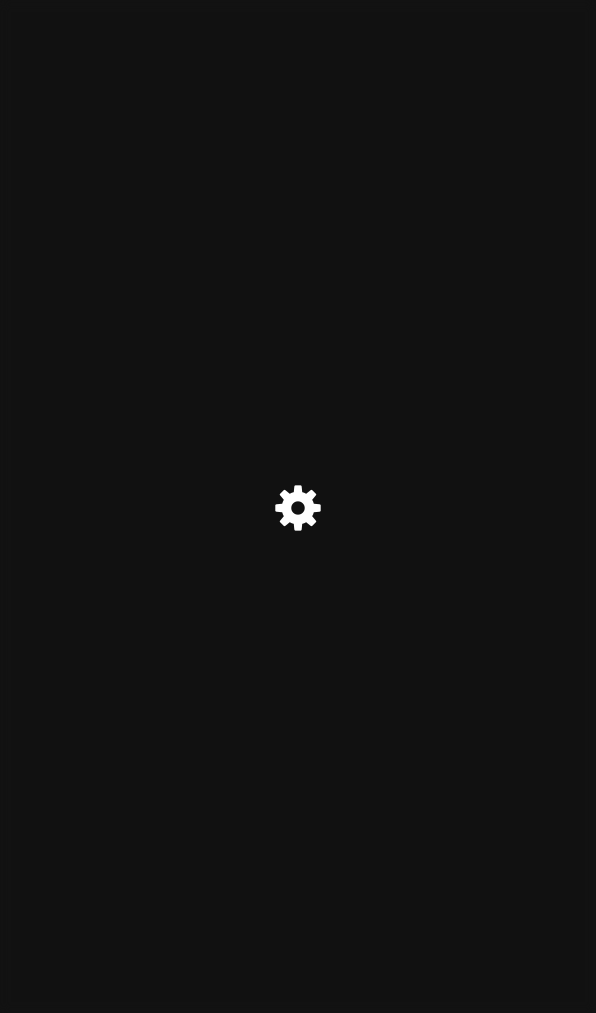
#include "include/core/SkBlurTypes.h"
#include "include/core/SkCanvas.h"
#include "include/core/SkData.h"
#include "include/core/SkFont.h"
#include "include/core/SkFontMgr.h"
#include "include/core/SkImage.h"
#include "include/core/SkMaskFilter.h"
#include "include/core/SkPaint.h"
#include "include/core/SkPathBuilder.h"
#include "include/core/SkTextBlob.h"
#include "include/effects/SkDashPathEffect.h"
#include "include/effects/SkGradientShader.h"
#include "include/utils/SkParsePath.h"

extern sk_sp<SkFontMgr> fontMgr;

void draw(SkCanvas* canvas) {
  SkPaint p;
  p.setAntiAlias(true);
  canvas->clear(SkColorSetRGB(17, 17, 17));
  canvas->drawImageRect(SkImages::DeferredFromEncodedData(SkData::MakeFromFileName("images/1.png")), SkRect::MakeLTRB(0, 0, 596, 1013), SkSamplingOptions());
  canvas->drawImageRect(SkImages::DeferredFromEncodedData(SkData::MakeFromFileName("images/2.png")), SkRect::MakeLTRB(275, 485, 321, 531), SkSamplingOptions());
}
